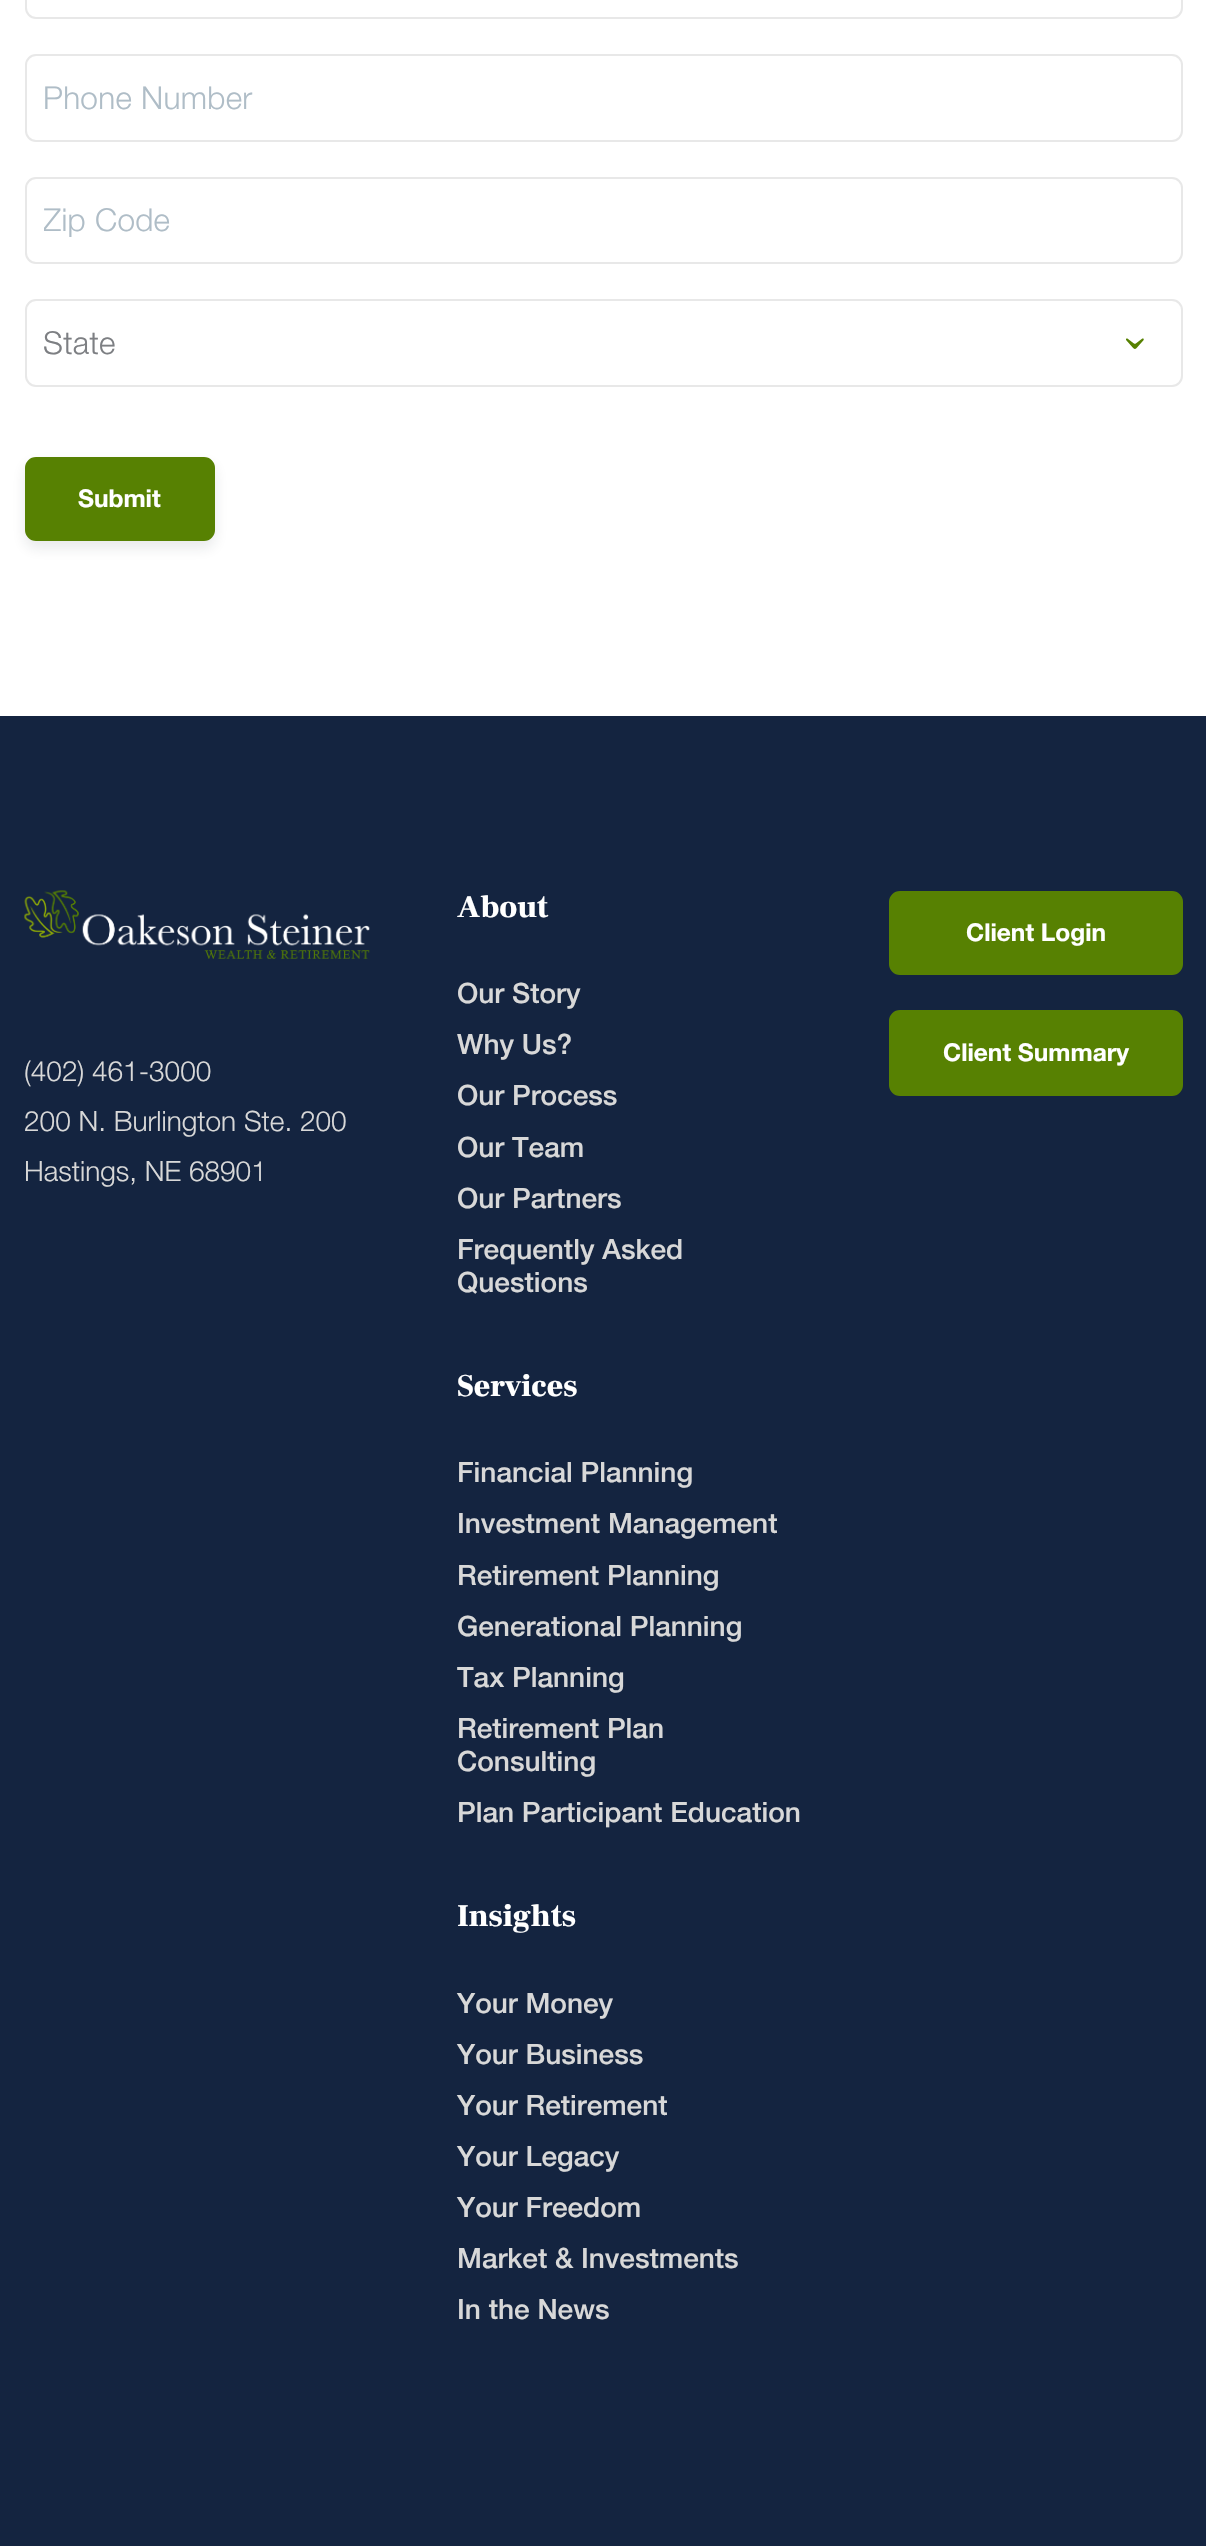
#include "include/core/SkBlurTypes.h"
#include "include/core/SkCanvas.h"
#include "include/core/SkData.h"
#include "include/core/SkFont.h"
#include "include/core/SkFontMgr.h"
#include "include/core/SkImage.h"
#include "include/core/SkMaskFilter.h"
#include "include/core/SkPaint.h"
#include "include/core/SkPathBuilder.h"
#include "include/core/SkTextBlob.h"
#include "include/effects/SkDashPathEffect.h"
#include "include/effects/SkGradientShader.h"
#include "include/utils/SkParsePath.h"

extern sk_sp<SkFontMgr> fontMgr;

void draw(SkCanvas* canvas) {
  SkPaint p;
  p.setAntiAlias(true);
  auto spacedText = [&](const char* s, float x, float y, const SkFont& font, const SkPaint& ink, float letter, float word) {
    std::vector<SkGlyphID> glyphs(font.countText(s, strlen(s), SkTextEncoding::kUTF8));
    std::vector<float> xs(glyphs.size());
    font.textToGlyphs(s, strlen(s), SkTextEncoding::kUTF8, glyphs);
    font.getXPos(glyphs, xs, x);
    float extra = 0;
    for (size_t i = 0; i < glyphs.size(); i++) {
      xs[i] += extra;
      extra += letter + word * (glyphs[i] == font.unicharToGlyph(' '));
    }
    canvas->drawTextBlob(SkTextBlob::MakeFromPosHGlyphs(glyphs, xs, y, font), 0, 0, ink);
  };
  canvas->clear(SkColorSetRGB(20, 36, 64));
  p.setColor(SK_ColorWHITE);
  canvas->drawRect(SkRect::MakeLTRB(0, 0, 1206, 716), p);
  p.setStyle(SkPaint::kStroke_Style);
  p.setStrokeWidth(2);
  p.setColor(SkColorSetRGB(232, 232, 232));
  canvas->drawRoundRect(SkRect::MakeLTRB(26, -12, 1182, 18), 10, 10, p);
  canvas->drawRoundRect(SkRect::MakeLTRB(26, 55, 1182, 141), 10, 10, p);
  canvas->drawRoundRect(SkRect::MakeLTRB(26, 178, 1182, 263), 10, 10, p);
  canvas->drawImageRect(SkImages::DeferredFromEncodedData(SkData::MakeFromFileName("images/1.png")), SkRect::MakeLTRB(1126, 338, 1144, 349), SkSamplingOptions());
  canvas->drawRoundRect(SkRect::MakeLTRB(26, 300, 1182, 386), 10, 10, p);
  p.setStyle(SkPaint::kFill_Style);
  p.setColor(SkColorSetARGB(26, 27, 38, 50));
  p.setMaskFilter(SkMaskFilter::MakeBlur(kNormal_SkBlurStyle, 7));
  canvas->drawRoundRect(SkRect::MakeLTRB(25, 464, 215, 548), 11, 11, p);
  p.setMaskFilter(nullptr);
  p.setColor(SkColorSetRGB(87, 129, 2));
  canvas->drawRoundRect(SkRect::MakeLTRB(26, 458, 214, 540), 10, 10, p);
  p.setStyle(SkPaint::kStroke_Style);
  canvas->drawRoundRect(SkRect::MakeLTRB(26, 458, 214, 540), 10, 10, p);
  p.setStyle(SkPaint::kFill_Style);
  canvas->drawRoundRect(SkRect::MakeLTRB(890, 892, 1182, 974), 10, 10, p);
  p.setStyle(SkPaint::kStroke_Style);
  canvas->drawRoundRect(SkRect::MakeLTRB(890, 892, 1182, 974), 10, 10, p);
  p.setStyle(SkPaint::kFill_Style);
  canvas->drawRoundRect(SkRect::MakeLTRB(890, 1011, 1182, 1095), 10, 10, p);
  p.setStyle(SkPaint::kStroke_Style);
  canvas->drawRoundRect(SkRect::MakeLTRB(890, 1011, 1182, 1095), 10, 10, p);
  canvas->drawImageRect(SkImages::DeferredFromEncodedData(SkData::MakeFromFileName("images/2.png")), SkRect::MakeLTRB(24, 890, 370, 959), SkSamplingOptions());
  SkFont font1(fontMgr->matchFamilyStyle("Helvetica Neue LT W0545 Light", SkFontStyle(300, SkFontStyle::kNormal_Width, SkFontStyle::kUpright_Slant)), 31.5f);
  font1.setSubpixel(true);
  p.setStyle(SkPaint::kFill_Style);
  p.setColor(SkColorSetRGB(175, 189, 199));
  spacedText("Phone Number", 43, 109, font1, p, 0.3f, 0);
  canvas->save();
  canvas->clipRect(SkRect::MakeLTRB(44, 201, 1164, 238));
  spacedText("Zip Code", 43, 231, font1, p, 0.3f, 0);
  canvas->restore();
  p.setColor(SkColorSetRGB(125, 127, 131));
  spacedText("State", 43, 354, font1, p, 0.3f, 0);
  SkFont font2(fontMgr->matchFamilyStyle("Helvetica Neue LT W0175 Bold", SkFontStyle::Bold()), 24.5f);
  font2.setSubpixel(true);
  p.setColor(SK_ColorWHITE);
  canvas->drawString("Submit", 78, 507, font2, p);
  SkFont font3(fontMgr->matchFamilyStyle("Frank Ruhl Libre", SkFontStyle(900, SkFontStyle::kNormal_Width, SkFontStyle::kUpright_Slant)), 31.5f);
  font3.setSubpixel(true);
  canvas->drawString("About", 457, 917, font3, p);
  SkFont font4(fontMgr->matchFamilyStyle("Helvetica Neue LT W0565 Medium", SkFontStyle(500, SkFontStyle::kNormal_Width, SkFontStyle::kUpright_Slant)), 28);
  font4.setSubpixel(true);
  p.setColor(SkColorSetRGB(216, 216, 216));
  canvas->drawString("Our Story", 457, 1003, font4, p);
  canvas->drawString("Why Us?", 457, 1054, font4, p);
  canvas->drawString("Our Process", 457, 1105, font4, p);
  canvas->drawString("Our Team", 457, 1157, font4, p);
  canvas->drawString("Our Partners", 457, 1208, font4, p);
  canvas->drawString("Frequently Asked", 457, 1259, font4, p);
  canvas->drawString("Questions", 457, 1292, font4, p);
  p.setColor(SK_ColorWHITE);
  canvas->drawString("Services", 457, 1396, font3, p);
  p.setColor(SkColorSetRGB(216, 216, 216));
  canvas->drawString("Financial Planning", 457, 1482, font4, p);
  canvas->drawString("Investment Management", 457, 1533, font4, p);
  canvas->drawString("Retirement Planning", 457, 1585, font4, p);
  canvas->drawString("Generational Planning", 457, 1636, font4, p);
  canvas->drawString("Tax Planning", 457, 1687, font4, p);
  canvas->drawString("Retirement Plan", 457, 1738, font4, p);
  canvas->drawString("Consulting", 457, 1771, font4, p);
  canvas->drawString("Plan Participant Education", 457, 1822, font4, p);
  p.setColor(SK_ColorWHITE);
  canvas->drawString("Insights", 457, 1926, font3, p);
  p.setColor(SkColorSetRGB(216, 216, 216));
  canvas->drawString("Your Money", 457, 2013, font4, p);
  canvas->drawString("Your Business", 457, 2064, font4, p);
  canvas->drawString("Your Retirement", 457, 2115, font4, p);
  canvas->drawString("Your Legacy", 457, 2166, font4, p);
  canvas->drawString("Your Freedom", 457, 2217, font4, p);
  canvas->drawString("Market & Investments", 457, 2268, font4, p);
  canvas->drawString("In the News", 457, 2319, font4, p);
  p.setColor(SK_ColorWHITE);
  canvas->drawString("Client Login", 966, 941, font2, p);
  canvas->drawString("Client Summary", 943, 1061, font2, p);
  SkFont font5(fontMgr->matchFamilyStyle("Helvetica Neue LT W0545 Light", SkFontStyle(300, SkFontStyle::kNormal_Width, SkFontStyle::kUpright_Slant)), 28);
  font5.setSubpixel(true);
  p.setColor(SkColorSetRGB(216, 216, 216));
  canvas->drawString("(402) 461-3000", 24, 1081, font5, p);
  canvas->drawString("200 N. Burlington Ste. 200", 24, 1131, font5, p);
  canvas->drawString("Hastings, NE 68901", 24, 1181, font5, p);
}
